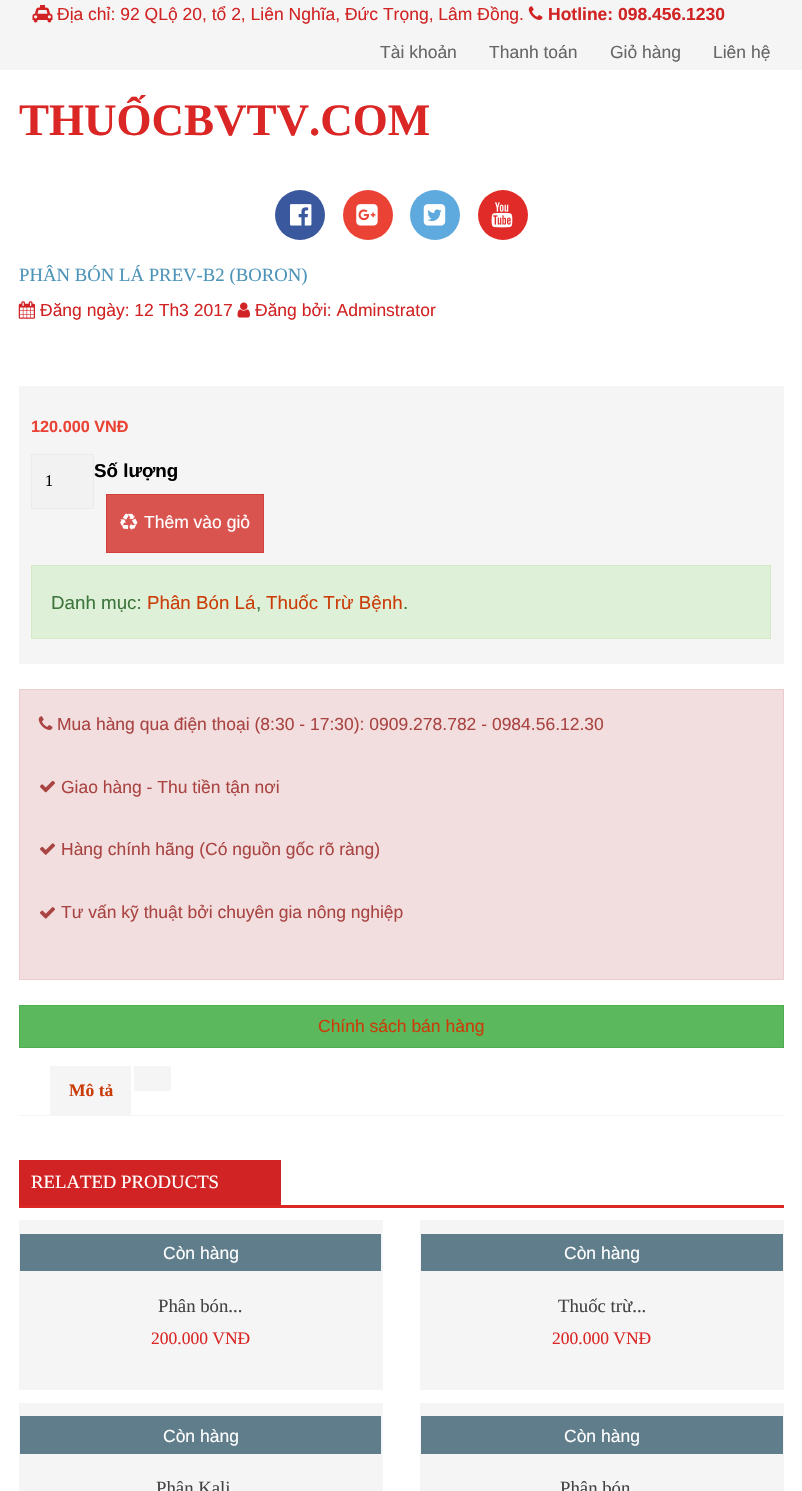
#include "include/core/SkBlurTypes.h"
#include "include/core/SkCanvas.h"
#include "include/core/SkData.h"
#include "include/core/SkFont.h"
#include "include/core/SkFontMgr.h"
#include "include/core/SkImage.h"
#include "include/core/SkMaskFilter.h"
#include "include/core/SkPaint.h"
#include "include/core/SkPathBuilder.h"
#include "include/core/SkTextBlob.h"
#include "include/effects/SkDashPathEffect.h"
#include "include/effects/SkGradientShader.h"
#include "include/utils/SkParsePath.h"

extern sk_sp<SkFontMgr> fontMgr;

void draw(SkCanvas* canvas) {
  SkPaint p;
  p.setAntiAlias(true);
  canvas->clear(SK_ColorWHITE);
  p.setColor(SkColorSetRGB(245, 245, 245));
  canvas->drawRect(SkRect::MakeLTRB(0, 0, 802, 70), p);
  canvas->drawImageRect(SkImages::DeferredFromEncodedData(SkData::MakeFromFileName("images/1.png")), SkRect::MakeLTRB(32, 5, 53, 23), SkSamplingOptions());
  canvas->drawImageRect(SkImages::DeferredFromEncodedData(SkData::MakeFromFileName("images/2.png")), SkRect::MakeLTRB(528, 6, 543, 20), SkSamplingOptions());
  p.setColor(SkColorSetRGB(58, 88, 158));
  canvas->drawCircle(300, 215, 25, p);
  canvas->drawImageRect(SkImages::DeferredFromEncodedData(SkData::MakeFromFileName("images/3.png")), SkRect::MakeLTRB(290, 204, 312, 226), SkSamplingOptions());
  p.setColor(SkColorSetRGB(234, 67, 53));
  canvas->drawCircle(368, 215, 25, p);
  canvas->drawImageRect(SkImages::DeferredFromEncodedData(SkData::MakeFromFileName("images/4.png")), SkRect::MakeLTRB(356, 204, 378, 226), SkSamplingOptions());
  p.setColor(SkColorSetRGB(94, 169, 221));
  canvas->drawCircle(435, 215, 25, p);
  canvas->drawImageRect(SkImages::DeferredFromEncodedData(SkData::MakeFromFileName("images/5.png")), SkRect::MakeLTRB(423, 204, 446, 226), SkSamplingOptions());
  p.setColor(SkColorSetRGB(225, 43, 40));
  canvas->drawCircle(503, 215, 25, p);
  canvas->drawImageRect(SkImages::DeferredFromEncodedData(SkData::MakeFromFileName("images/6.png")), SkRect::MakeLTRB(491, 202, 513, 228), SkSamplingOptions());
  canvas->drawImageRect(SkImages::DeferredFromEncodedData(SkData::MakeFromFileName("images/7.png")), SkRect::MakeLTRB(18, 301, 35, 319), SkSamplingOptions());
  canvas->drawImageRect(SkImages::DeferredFromEncodedData(SkData::MakeFromFileName("images/8.png")), SkRect::MakeLTRB(237, 302, 250, 318), SkSamplingOptions());
  p.setColor(SkColorSetRGB(245, 245, 245));
  canvas->drawRect(SkRect::MakeLTRB(19, 386, 784, 664), p);
  p.setColor(SkColorSetRGB(242, 242, 242));
  canvas->drawRect(SkRect::MakeLTRB(31.5f, 454.5f, 93.5f, 508.5f), p);
  p.setStyle(SkPaint::kStroke_Style);
  p.setStrokeWidth(1);
  p.setColor(SkColorSetRGB(235, 235, 235));
  canvas->drawRect(SkRect::MakeLTRB(31.5f, 454.5f, 93.5f, 508.5f), p);
  p.setStyle(SkPaint::kFill_Style);
  p.setColor(SkColorSetRGB(217, 83, 79));
  canvas->drawRect(SkRect::MakeLTRB(106.5f, 494.5f, 263.5f, 552.5f), p);
  p.setStyle(SkPaint::kStroke_Style);
  p.setColor(SkColorSetRGB(212, 63, 58));
  canvas->drawRect(SkRect::MakeLTRB(106.5f, 494.5f, 263.5f, 552.5f), p);
  canvas->drawImageRect(SkImages::DeferredFromEncodedData(SkData::MakeFromFileName("images/9.png")), SkRect::MakeLTRB(120, 513, 138, 531), SkSamplingOptions());
  p.setStyle(SkPaint::kFill_Style);
  p.setColor(SkColorSetRGB(223, 240, 216));
  canvas->drawRect(SkRect::MakeLTRB(31.5f, 565.5f, 770.5f, 638.5f), p);
  p.setStyle(SkPaint::kStroke_Style);
  p.setColor(SkColorSetRGB(214, 233, 198));
  canvas->drawRect(SkRect::MakeLTRB(31.5f, 565.5f, 770.5f, 638.5f), p);
  p.setStyle(SkPaint::kFill_Style);
  p.setColor(SkColorSetRGB(242, 222, 222));
  canvas->drawRect(SkRect::MakeLTRB(19.5f, 689.5f, 783.5f, 979.5f), p);
  p.setStyle(SkPaint::kStroke_Style);
  p.setColor(SkColorSetRGB(235, 204, 209));
  canvas->drawRect(SkRect::MakeLTRB(19.5f, 689.5f, 783.5f, 979.5f), p);
  canvas->drawImageRect(SkImages::DeferredFromEncodedData(SkData::MakeFromFileName("images/10.png")), SkRect::MakeLTRB(38, 716, 53, 730), SkSamplingOptions());
  canvas->drawImageRect(SkImages::DeferredFromEncodedData(SkData::MakeFromFileName("images/11.png")), SkRect::MakeLTRB(40, 780, 55, 793), SkSamplingOptions());
  canvas->drawImageRect(SkImages::DeferredFromEncodedData(SkData::MakeFromFileName("images/12.png")), SkRect::MakeLTRB(40, 843, 55, 855), SkSamplingOptions());
  canvas->drawImageRect(SkImages::DeferredFromEncodedData(SkData::MakeFromFileName("images/13.png")), SkRect::MakeLTRB(40, 907, 55, 919), SkSamplingOptions());
  p.setStyle(SkPaint::kFill_Style);
  p.setColor(SkColorSetRGB(92, 184, 92));
  canvas->drawRect(SkRect::MakeLTRB(19.5f, 1005.5f, 783.5f, 1047.5f), p);
  p.setStyle(SkPaint::kStroke_Style);
  p.setColor(SkColorSetRGB(76, 174, 76));
  canvas->drawRect(SkRect::MakeLTRB(19.5f, 1005.5f, 783.5f, 1047.5f), p);
  p.setStyle(SkPaint::kFill_Style);
  p.setColor(SkColorSetRGB(245, 245, 245));
  canvas->drawRect(SkRect::MakeLTRB(19, 1115, 784, 1116), p);
  canvas->drawRect(SkRect::MakeLTRB(50, 1066, 131, 1115), p);
  canvas->drawRect(SkRect::MakeLTRB(134, 1066, 171, 1091), p);
  p.setColor(SkColorSetRGB(218, 38, 37));
  canvas->drawRect(SkRect::MakeLTRB(19, 1205, 784, 1208), p);
  p.setColor(SkColorSetRGB(209, 35, 35));
  canvas->drawRect(SkRect::MakeLTRB(19, 1160, 281, 1205), p);
  p.setColor(SkColorSetRGB(245, 245, 245));
  canvas->drawRect(SkRect::MakeLTRB(19, 1220, 383, 1390), p);
  p.setColor(SkColorSetRGB(96, 125, 139));
  canvas->drawRect(SkRect::MakeLTRB(20, 1234, 381, 1271), p);
  p.setColor(SkColorSetRGB(245, 245, 245));
  canvas->drawRect(SkRect::MakeLTRB(420, 1220, 784, 1390), p);
  p.setColor(SkColorSetRGB(96, 125, 139));
  canvas->drawRect(SkRect::MakeLTRB(421, 1234, 783, 1271), p);
  p.setColor(SkColorSetRGB(245, 245, 245));
  canvas->drawRect(SkRect::MakeLTRB(19, 1403, 383, 1491), p);
  p.setColor(SkColorSetRGB(96, 125, 139));
  canvas->drawRect(SkRect::MakeLTRB(20, 1416, 381, 1454), p);
  p.setColor(SkColorSetRGB(245, 245, 245));
  canvas->drawRect(SkRect::MakeLTRB(420, 1403, 784, 1491), p);
  p.setColor(SkColorSetRGB(96, 125, 139));
  canvas->drawRect(SkRect::MakeLTRB(421, 1416, 783, 1454), p);
  SkFont font1(fontMgr->matchFamilyStyle("Liberation Sans", SkFontStyle::Normal()), 17.5f);
  font1.setSubpixel(true);
  p.setColor(SkColorSetRGB(209, 35, 35));
  canvas->drawString("Địa chỉ: 92 QLộ 20, tổ 2, Liên Nghĩa, Đức Trọng, Lâm Đồng.", 57, 20, font1, p);
  SkFont font2(fontMgr->matchFamilyStyle("Liberation Sans", SkFontStyle::Bold()), 17.5f);
  font2.setSubpixel(true);
  canvas->drawString("Hotline: 098.456.1230", 548, 20, font2, p);
  p.setColor(SkColorSetRGB(102, 102, 102));
  canvas->drawString("Tài khoản", 380, 58, font1, p);
  canvas->drawString("Thanh toán", 489, 58, font1, p);
  canvas->drawString("Giỏ hàng", 610, 58, font1, p);
  canvas->drawString("Liên hệ", 713, 58, font1, p);
  SkFont font3(fontMgr->matchFamilyStyle("Liberation Serif", SkFontStyle::Bold()), 45);
  font3.setSubpixel(true);
  p.setColor(SkColorSetRGB(218, 38, 37));
  canvas->drawString("THUỐCBVTV.COM", 19, 135, font3, p);
  SkFont font4(fontMgr->matchFamilyStyle("Liberation Serif", SkFontStyle::Normal()), 18.75f);
  font4.setSubpixel(true);
  p.setColor(SkColorSetRGB(76, 147, 184));
  canvas->drawString("PHÂN BÓN LÁ PREV-B2 (BORON)", 19, 281, font4, p);
  p.setColor(SkColorSetRGB(209, 35, 35));
  canvas->drawString("Đăng ngày: 12 Th3 2017", 40, 316, font1, p);
  canvas->drawString("Đăng bởi: Adminstrator", 255, 316, font1, p);
  SkFont font5(fontMgr->matchFamilyStyle("Liberation Sans", SkFontStyle::Bold()), 16.25f);
  font5.setSubpixel(true);
  p.setColor(SkColorSetRGB(234, 67, 53));
  canvas->drawString("120.000 VNĐ", 31, 432, font5, p);
  SkFont font6(fontMgr->matchFamilyStyle("Liberation Serif", SkFontStyle::Normal()), 16.25f);
  font6.setSubpixel(true);
  p.setColor(SK_ColorBLACK);
  canvas->drawString("1", 45, 486, font6, p);
  SkFont font7(fontMgr->matchFamilyStyle("Liberation Sans", SkFontStyle::Bold()), 18.75f);
  font7.setSubpixel(true);
  canvas->drawString("Số lượng", 94, 477, font7, p);
  p.setColor(SK_ColorWHITE);
  canvas->drawString("Thêm vào giỏ", 144, 528, font1, p);
  SkFont font8(fontMgr->matchFamilyStyle("Liberation Sans", SkFontStyle::Normal()), 18.75f);
  font8.setSubpixel(true);
  p.setColor(SkColorSetRGB(60, 118, 61));
  canvas->drawString("Danh mục:", 51, 609, font8, p);
  p.setColor(SkColorSetRGB(202, 60, 8));
  canvas->drawString("Phân Bón Lá", 147, 609, font8, p);
  p.setColor(SkColorSetRGB(60, 118, 61));
  canvas->drawString(",", 256, 609, font8, p);
  p.setColor(SkColorSetRGB(202, 60, 8));
  canvas->drawString("Thuốc Trừ Bệnh", 266, 609, font8, p);
  p.setColor(SkColorSetRGB(60, 118, 61));
  canvas->drawString(".", 403, 609, font8, p);
  p.setColor(SkColorSetRGB(169, 68, 66));
  canvas->drawString("Mua hàng qua điện thoại (8:30 - 17:30): 0909.278.782 - 0984.56.12.30", 57, 730, font1, p);
  canvas->drawString("Giao hàng - Thu tiền tận nơi", 61, 793, font1, p);
  canvas->drawString("Hàng chính hãng (Có nguồn gốc rõ ràng)", 61, 855, font1, p);
  canvas->drawString("Tư vấn kỹ thuật bởi chuyên gia nông nghiệp", 61, 918, font1, p);
  p.setColor(SkColorSetRGB(202, 60, 8));
  canvas->drawString("Chính sách bán hàng", 318, 1032, font1, p);
  SkFont font9(fontMgr->matchFamilyStyle("Liberation Serif", SkFontStyle::Bold()), 17.5f);
  font9.setSubpixel(true);
  canvas->drawString("Mô tả", 69, 1096, font9, p);
  p.setColor(SK_ColorWHITE);
  canvas->drawString("RELATED PRODUCTS", 31, 1188, font4, p);
  canvas->drawString("Còn hàng", 163, 1259, font1, p);
  p.setColor(SkColorSetRGB(68, 68, 68));
  canvas->drawString("Phân bón...", 158, 1312, font4, p);
  SkFont font10(fontMgr->matchFamilyStyle("Liberation Serif", SkFontStyle::Normal()), 17.5f);
  font10.setSubpixel(true);
  p.setColor(SkColorSetRGB(218, 38, 37));
  canvas->drawString("200.000 VNĐ", 151, 1344, font10, p);
  p.setColor(SK_ColorWHITE);
  canvas->drawString("Còn hàng", 564, 1259, font1, p);
  p.setColor(SkColorSetRGB(68, 68, 68));
  canvas->drawString("Thuốc trừ...", 558, 1312, font4, p);
  p.setColor(SkColorSetRGB(218, 38, 37));
  canvas->drawString("200.000 VNĐ", 552, 1344, font10, p);
  p.setColor(SK_ColorWHITE);
  canvas->drawString("Còn hàng", 163, 1442, font1, p);
  p.setColor(SkColorSetRGB(68, 68, 68));
  canvas->drawString("Phân Kali", 156, 1494, font4, p);
  p.setColor(SK_ColorWHITE);
  canvas->drawString("Còn hàng", 564, 1442, font1, p);
  p.setColor(SkColorSetRGB(68, 68, 68));
  canvas->drawString("Phân bón", 560, 1494, font4, p);
}
